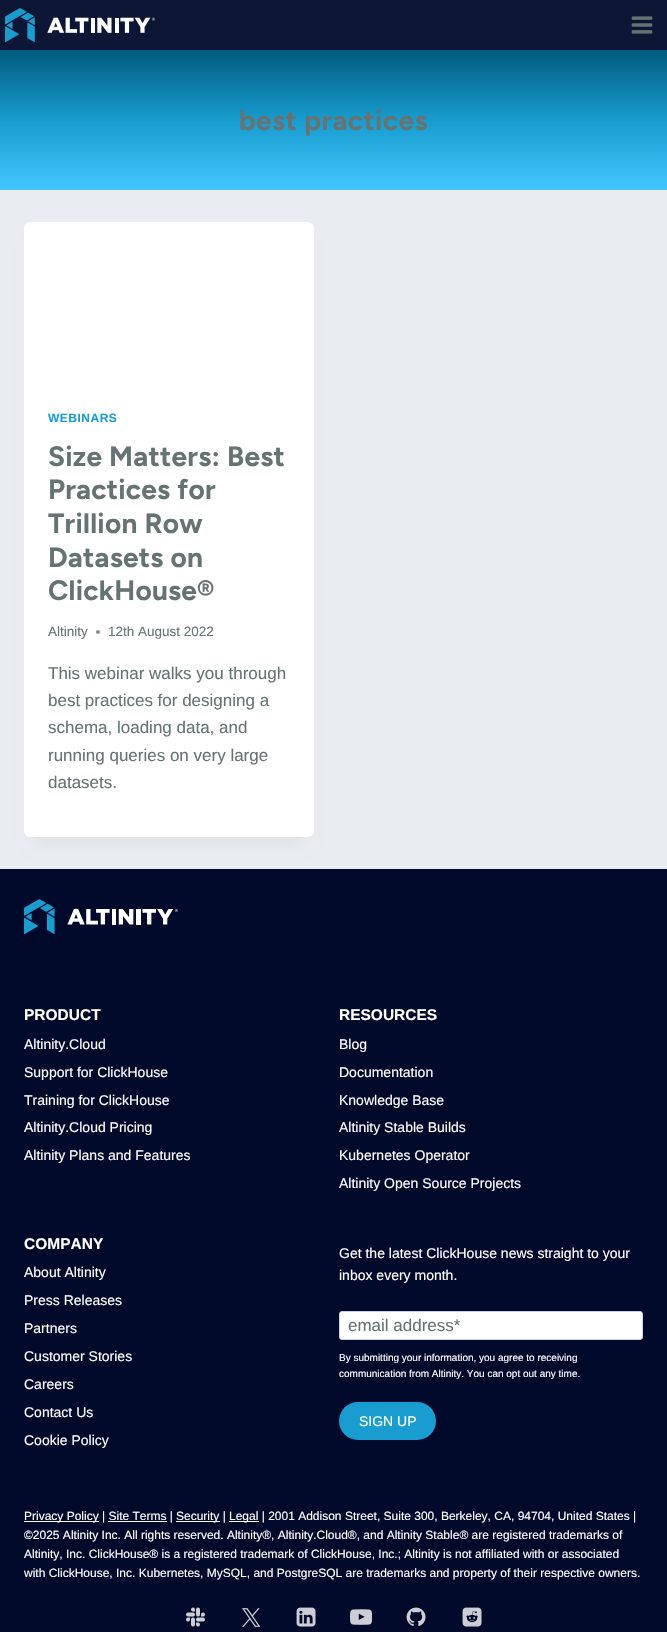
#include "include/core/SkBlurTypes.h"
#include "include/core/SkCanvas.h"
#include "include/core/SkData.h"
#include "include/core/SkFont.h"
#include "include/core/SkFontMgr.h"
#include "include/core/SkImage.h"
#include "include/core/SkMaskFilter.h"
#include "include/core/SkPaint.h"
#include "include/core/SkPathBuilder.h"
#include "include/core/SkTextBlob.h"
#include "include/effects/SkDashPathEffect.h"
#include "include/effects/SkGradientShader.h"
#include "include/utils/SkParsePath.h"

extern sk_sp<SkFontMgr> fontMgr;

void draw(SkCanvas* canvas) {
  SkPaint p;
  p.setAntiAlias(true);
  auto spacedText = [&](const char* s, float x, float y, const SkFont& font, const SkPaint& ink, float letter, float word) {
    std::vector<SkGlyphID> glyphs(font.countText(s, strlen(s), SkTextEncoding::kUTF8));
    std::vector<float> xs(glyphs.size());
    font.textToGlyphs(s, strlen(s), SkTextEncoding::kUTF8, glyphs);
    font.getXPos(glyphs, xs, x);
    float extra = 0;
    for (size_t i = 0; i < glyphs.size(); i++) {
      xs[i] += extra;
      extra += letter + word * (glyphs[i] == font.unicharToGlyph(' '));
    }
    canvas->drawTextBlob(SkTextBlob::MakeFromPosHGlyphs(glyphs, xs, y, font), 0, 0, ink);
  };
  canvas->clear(SkColorSetRGB(233, 236, 240));
  p.setColor(SkColorSetRGB(14, 22, 53));
  canvas->drawRect(SkRect::MakeLTRB(0, 0, 667, 50), p);
  canvas->drawImageRect(SkImages::DeferredFromEncodedData(SkData::MakeFromFileName("images/1.png")), SkRect::MakeLTRB(5, 8, 155, 42), SkSamplingOptions());
  canvas->drawImageRect(SkImages::DeferredFromEncodedData(SkData::MakeFromFileName("images/2.png")), SkRect::MakeLTRB(631, 16, 653, 34), SkSamplingOptions());
  {
    const SkColor colors[] = {SkColorSetRGB(4, 95, 131), SkColorSetRGB(24, 157, 208), SkColorSetRGB(67, 198, 252)};
    const float stops[] = {0.03f, 0.51f, 1};
    const SkPoint ends[] = {{334, 50}, {334, 190}};
    p.setShader(SkGradientShader::MakeLinear(ends, colors, stops, 3, SkTileMode::kClamp));
    p.setAlpha(255);
  }
  canvas->drawRect(SkRect::MakeLTRB(0, 50, 667, 190), p);
  p.setShader(nullptr);
  p.setColor(SkColorSetARGB(13, 0, 0, 0));
  p.setMaskFilter(SkMaskFilter::MakeBlur(kNormal_SkBlurStyle, 7.5f));
  canvas->drawRect(SkRect::MakeLTRB(34, 247, 304, 842), p);
  p.setMaskFilter(nullptr);
  p.setColor(SK_ColorWHITE);
  canvas->drawRoundRect(SkRect::MakeLTRB(24, 222, 314, 837), 6, 6, p);
  p.setColor(SkColorSetRGB(133, 143, 143));
  canvas->drawCircle(98, 632, 2, p);
  p.setColor(SkColorSetRGB(2, 10, 43));
  canvas->drawRect(SkRect::MakeLTRB(0, 869, 667, 1632), p);
  canvas->drawImageRect(SkImages::DeferredFromEncodedData(SkData::MakeFromFileName("images/3.png")), SkRect::MakeLTRB(24, 899, 178, 934), SkSamplingOptions());
  p.setColor(SK_ColorWHITE);
  canvas->drawRoundRect(SkRect::MakeLTRB(339.5f, 1311.5f, 642.5f, 1339.5f), 2.5f, 2.5f, p);
  p.setStyle(SkPaint::kStroke_Style);
  p.setStrokeWidth(1);
  p.setColor(SkColorSetRGB(203, 213, 224));
  canvas->drawRoundRect(SkRect::MakeLTRB(339.5f, 1311.5f, 642.5f, 1339.5f), 2.5f, 2.5f, p);
  p.setStyle(SkPaint::kFill_Style);
  p.setColor(SkColorSetRGB(25, 157, 208));
  canvas->drawRoundRect(SkRect::MakeLTRB(339, 1402, 436, 1440), 19, 19, p);
  p.setColor(SK_ColorWHITE);
  canvas->drawRect(SkRect::MakeLTRB(24, 1521, 99, 1522), p);
  canvas->drawRect(SkRect::MakeLTRB(176, 1521, 220, 1522), p);
  canvas->drawRect(SkRect::MakeLTRB(229, 1521, 259, 1522), p);
  canvas->drawRect(SkRect::MakeLTRB(108, 1521, 167, 1522), p);
  canvas->drawImageRect(SkImages::DeferredFromEncodedData(SkData::MakeFromFileName("images/4.png")), SkRect::MakeLTRB(186, 1607, 205, 1627), SkSamplingOptions());
  canvas->drawImageRect(SkImages::DeferredFromEncodedData(SkData::MakeFromFileName("images/5.png")), SkRect::MakeLTRB(242, 1608, 260, 1627), SkSamplingOptions());
  canvas->drawImageRect(SkImages::DeferredFromEncodedData(SkData::MakeFromFileName("images/6.png")), SkRect::MakeLTRB(296, 1607, 316, 1627), SkSamplingOptions());
  canvas->drawImageRect(SkImages::DeferredFromEncodedData(SkData::MakeFromFileName("images/7.png")), SkRect::MakeLTRB(350, 1609, 372, 1625), SkSamplingOptions());
  canvas->drawImageRect(SkImages::DeferredFromEncodedData(SkData::MakeFromFileName("images/8.png")), SkRect::MakeLTRB(406, 1607, 426, 1626), SkSamplingOptions());
  canvas->drawImageRect(SkImages::DeferredFromEncodedData(SkData::MakeFromFileName("images/9.png")), SkRect::MakeLTRB(462, 1607, 482, 1627), SkSamplingOptions());
  SkFont font1(fontMgr->matchFamilyStyle("Figtree", SkFontStyle::Bold()), 28);
  font1.setSubpixel(true);
  p.setColor(SkColorSetRGB(102, 115, 115));
  spacedText("best practices", 239, 130, font1, p, 0.4f, 0);
  SkFont font2(fontMgr->matchFamilyStyle("Arimo", SkFontStyle::Bold()), 12);
  font2.setSubpixel(true);
  p.setColor(SkColorSetRGB(24, 157, 208));
  spacedText("WEBINARS", 48, 422, font2, p, 0.5f, 0);
  p.setColor(SkColorSetRGB(102, 115, 115));
  spacedText("Size Matters: Best", 48, 466, font1, p, 0.25f, 0);
  spacedText("Practices for", 48, 499, font1, p, 0.25f, 0);
  spacedText("Trillion Row", 48, 533, font1, p, 0.25f, 0);
  spacedText("Datasets on", 48, 567, font1, p, 0.25f, 0);
  spacedText("ClickHouse®", 48, 600, font1, p, 0.25f, 0);
  SkFont font3(fontMgr->matchFamilyStyle("Arimo", SkFontStyle::Normal()), 13.5f);
  font3.setSubpixel(true);
  canvas->drawString("Altinity", 48, 636, font3, p);
  canvas->drawString("12th August 2022", 108, 636, font3, p);
  SkFont font4(fontMgr->matchFamilyStyle("Arimo", SkFontStyle::Normal()), 17);
  font4.setSubpixel(true);
  canvas->drawString("This webinar walks you through", 48, 679, font4, p);
  canvas->drawString("best practices for designing a", 48, 706, font4, p);
  canvas->drawString("schema, loading data, and", 48, 733, font4, p);
  canvas->drawString("running queries on very large", 48, 761, font4, p);
  canvas->drawString("datasets.", 48, 788, font4, p);
  SkFont font5(fontMgr->matchFamilyStyle("Liberation Sans", SkFontStyle::Bold()), 15.5f);
  font5.setSubpixel(true);
  p.setColor(SK_ColorWHITE);
  canvas->drawString("PRODUCT", 24, 1020, font5, p);
  SkFont font6(fontMgr->matchFamilyStyle("Arimo", SkFontStyle::Normal()), 14);
  font6.setSubpixel(true);
  canvas->drawString("Altinity.Cloud", 24, 1049, font6, p);
  canvas->drawString("Support for ClickHouse", 24, 1077, font6, p);
  canvas->drawString("Training for ClickHouse", 24, 1105, font6, p);
  canvas->drawString("Altinity.Cloud Pricing", 24, 1132, font6, p);
  canvas->drawString("Altinity Plans and Features", 24, 1160, font6, p);
  canvas->drawString("RESOURCES", 339, 1020, font5, p);
  canvas->drawString("Blog", 339, 1049, font6, p);
  canvas->drawString("Documentation", 339, 1077, font6, p);
  canvas->drawString("Knowledge Base", 339, 1105, font6, p);
  canvas->drawString("Altinity Stable Builds", 339, 1132, font6, p);
  canvas->drawString("Kubernetes Operator", 339, 1160, font6, p);
  canvas->drawString("Altinity Open Source Projects", 339, 1188, font6, p);
  canvas->drawString("COMPANY", 24, 1249, font5, p);
  canvas->drawString("About Altinity", 24, 1277, font6, p);
  canvas->drawString("Press Releases", 24, 1305, font6, p);
  canvas->drawString("Partners", 24, 1333, font6, p);
  canvas->drawString("Customer Stories", 24, 1361, font6, p);
  canvas->drawString("Careers", 24, 1389, font6, p);
  canvas->drawString("Contact Us", 24, 1417, font6, p);
  canvas->drawString("Cookie Policy", 24, 1445, font6, p);
  canvas->drawString("Get the latest ClickHouse news straight to your", 339, 1258, font6, p);
  canvas->drawString("inbox every month.", 339, 1280, font6, p);
  p.setColor(SkColorSetRGB(102, 115, 115));
  canvas->drawString("email address*", 348, 1331, font4, p);
  SkFont font7(fontMgr->matchFamilyStyle("Liberation Sans", SkFontStyle::Normal()), 10);
  font7.setSubpixel(true);
  p.setColor(SK_ColorWHITE);
  canvas->drawString("By submitting your information, you agree to receiving", 339, 1361, font7, p);
  canvas->drawString("communication from Altinity. You can opt out any time.", 339, 1377, font7, p);
  canvas->drawString("SIGN UP", 359, 1426, font6, p);
  SkFont font8(fontMgr->matchFamilyStyle("Arimo", SkFontStyle::Normal()), 12);
  font8.setSubpixel(true);
  canvas->drawString("Privacy Policy | Site Terms |", 24, 1520, font8, p);
  canvas->drawString("Security |", 176, 1520, font8, p);
  canvas->drawString("Legal | 2001 Addison Street, Suite 300, Berkeley, CA, 94704, United States |", 229, 1520, font8, p);
  canvas->drawString("©2025 Altinity Inc. All rights reserved. Altinity®, Altinity.Cloud®, and Altinity Stable® are registered trademarks of", 24, 1539, font8, p);
  canvas->drawString("Altinity, Inc. ClickHouse® is a registered trademark of ClickHouse, Inc.; Altinity is not affiliated with or associated", 24, 1558, font8, p);
  canvas->drawString("with ClickHouse, Inc. Kubernetes, MySQL, and PostgreSQL are trademarks and property of their respective owners.", 24, 1577, font8, p);
}
